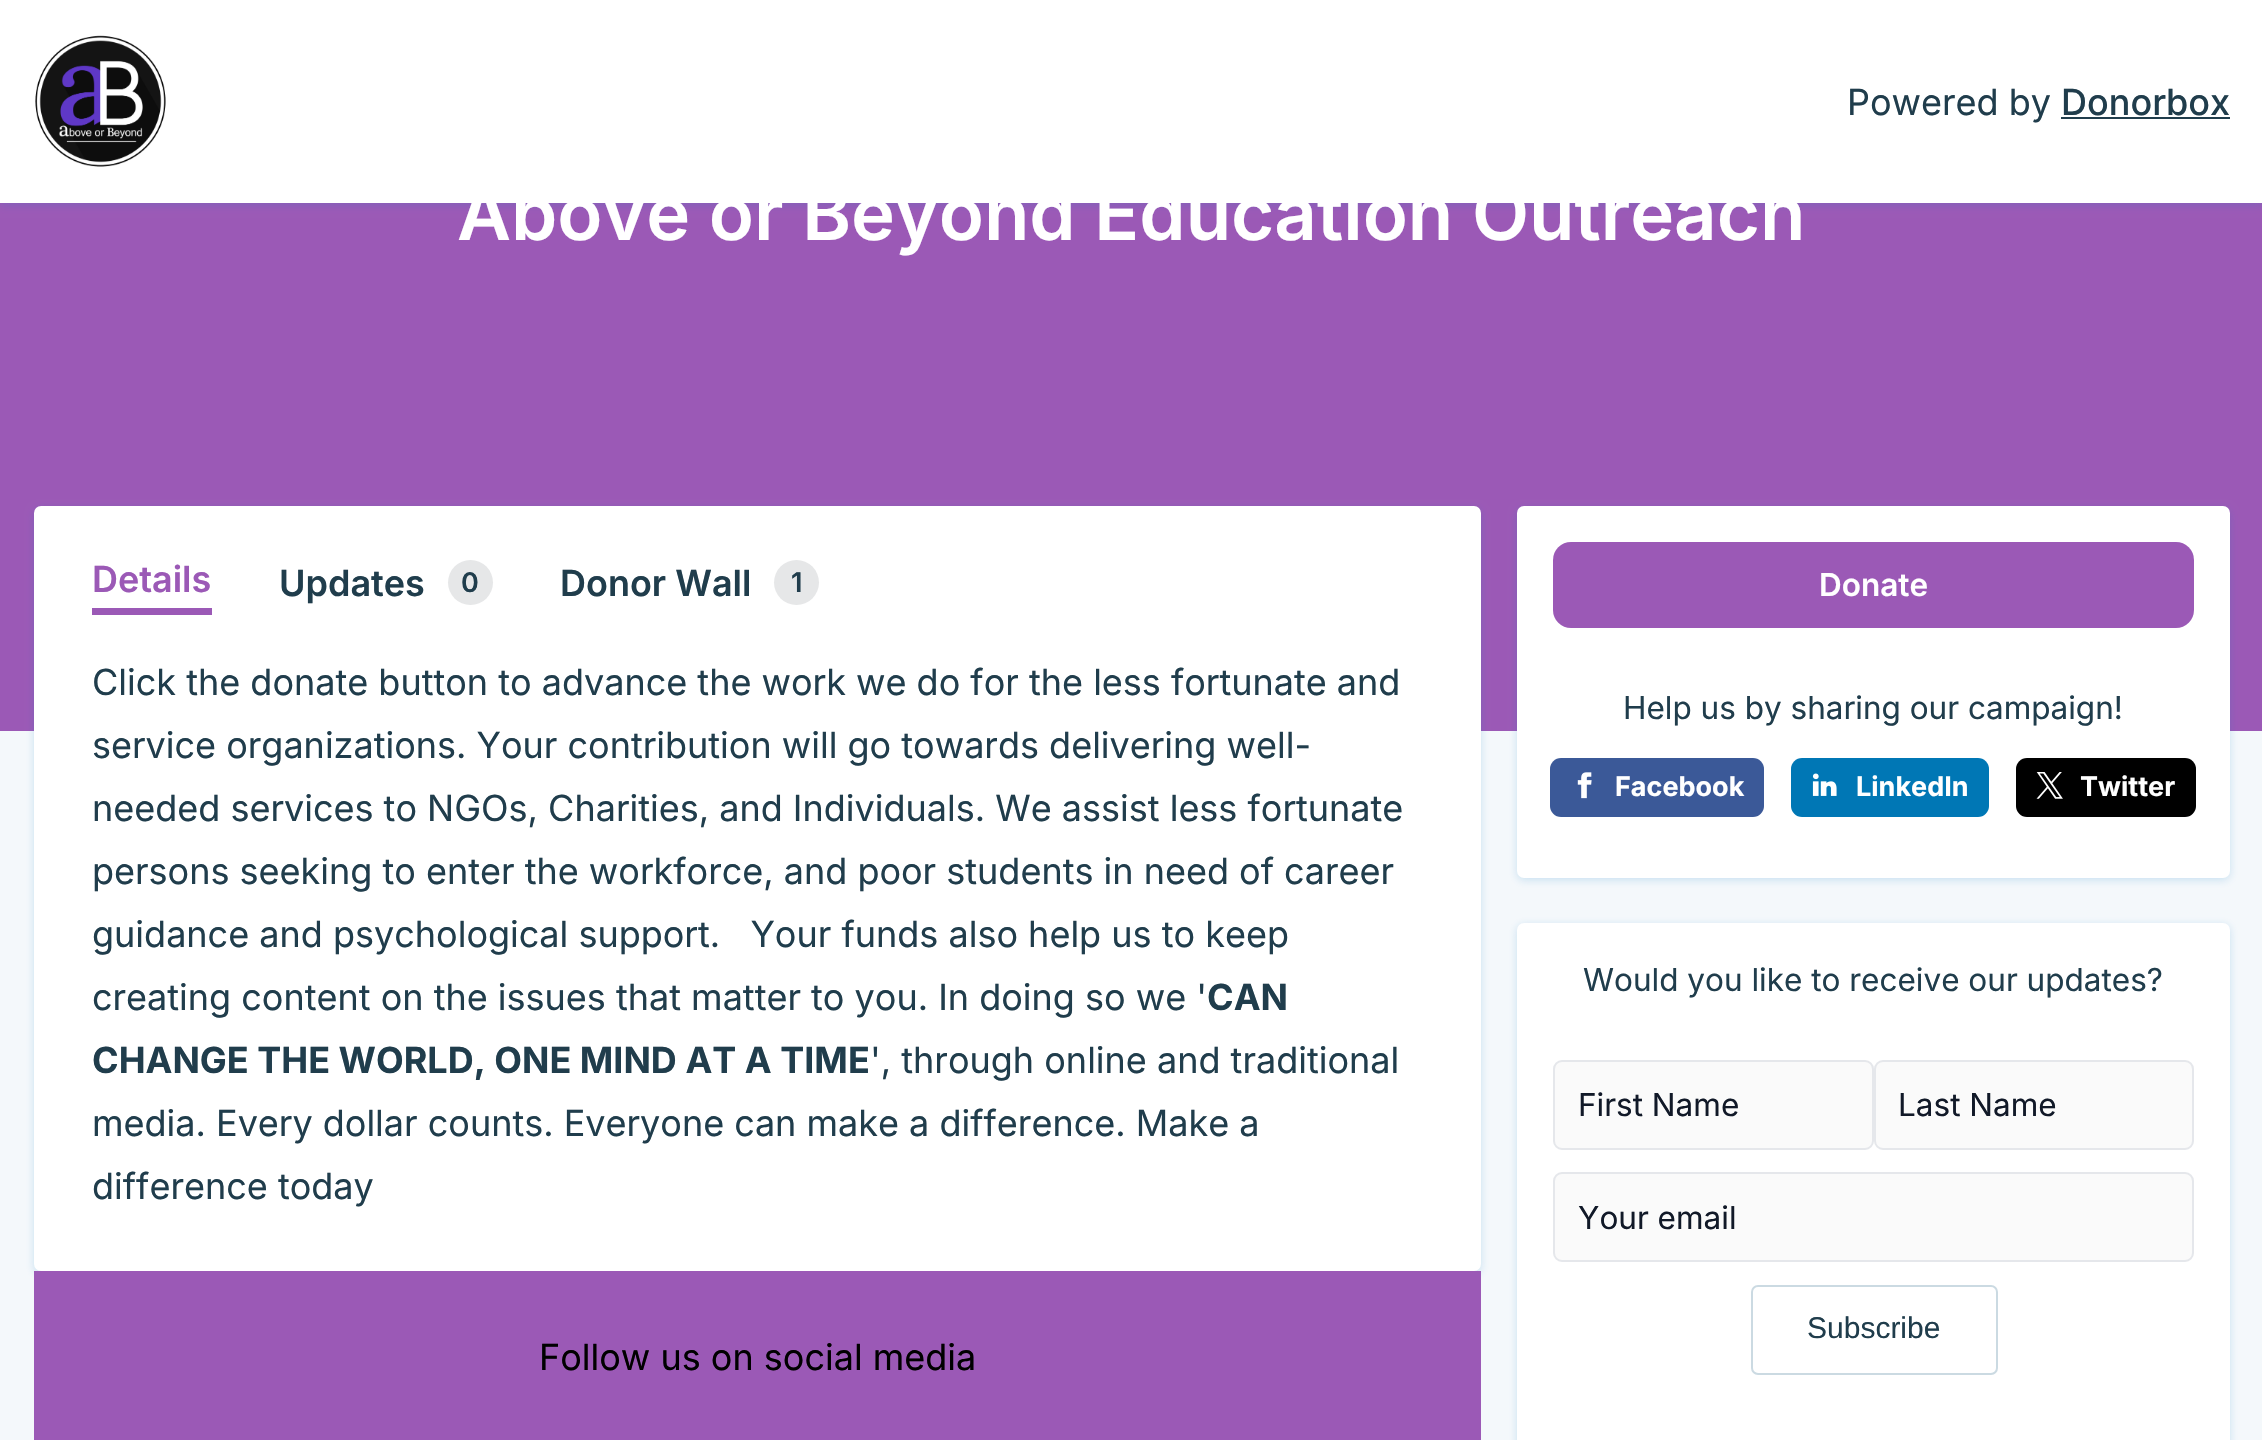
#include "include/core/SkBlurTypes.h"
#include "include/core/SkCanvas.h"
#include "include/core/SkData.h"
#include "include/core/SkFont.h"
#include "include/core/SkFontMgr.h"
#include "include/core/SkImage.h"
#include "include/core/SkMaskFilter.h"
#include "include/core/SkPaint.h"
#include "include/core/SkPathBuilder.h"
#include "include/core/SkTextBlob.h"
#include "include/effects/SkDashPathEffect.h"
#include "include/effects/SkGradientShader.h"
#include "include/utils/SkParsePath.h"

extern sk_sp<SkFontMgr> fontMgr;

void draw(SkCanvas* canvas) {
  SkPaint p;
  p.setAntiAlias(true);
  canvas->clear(SkColorSetRGB(244, 248, 251));
  p.setColor(SkColorSetRGB(155, 89, 182));
  canvas->drawRect(SkRect::MakeLTRB(0, 203, 2262, 731), p);
  p.setColor(SkColorSetARGB(51, 19, 126, 199));
  p.setMaskFilter(SkMaskFilter::MakeBlur(kNormal_SkBlurStyle, 4.5f));
  canvas->drawRect(SkRect::MakeLTRB(0, 2, 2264, 205), p);
  p.setMaskFilter(nullptr);
  p.setColor(SK_ColorWHITE);
  canvas->drawRect(SkRect::MakeLTRB(0, 0, 2262, 203), p);
  canvas->drawImageRect(SkImages::DeferredFromEncodedData(SkData::MakeFromFileName("images/1.png")), SkRect::MakeLTRB(35, 35, 166, 167), SkSamplingOptions());
  p.setColor(SkColorSetRGB(32, 61, 76));
  canvas->drawRect(SkRect::MakeLTRB(2061, 117, 2230, 119), p);
  p.setColor(SkColorSetARGB(51, 19, 126, 199));
  p.setMaskFilter(SkMaskFilter::MakeBlur(kNormal_SkBlurStyle, 4.5f));
  canvas->drawRoundRect(SkRect::MakeLTRB(34, 509, 1481, 1274), 7, 7, p);
  p.setMaskFilter(nullptr);
  p.setColor(SK_ColorWHITE);
  canvas->drawRoundRect(SkRect::MakeLTRB(34, 506, 1481, 1271), 7, 7, p);
  p.setColor(SkColorSetRGB(155, 89, 182));
  canvas->drawRect(SkRect::MakeLTRB(92, 608, 212, 615), p);
  p.setColor(SkColorSetRGB(230, 231, 232));
  canvas->drawCircle(470.5f, 582.5f, 22.5f, p);
  canvas->drawCircle(796.5f, 582.5f, 22.5f, p);
  p.setColor(SkColorSetRGB(155, 89, 182));
  canvas->drawRect(SkRect::MakeLTRB(34, 1271, 1481, 1440), p);
  p.setColor(SkColorSetARGB(51, 19, 126, 199));
  p.setMaskFilter(SkMaskFilter::MakeBlur(kNormal_SkBlurStyle, 4.5f));
  canvas->drawRoundRect(SkRect::MakeLTRB(1517, 509, 2230, 880), 7, 7, p);
  p.setMaskFilter(nullptr);
  p.setColor(SK_ColorWHITE);
  canvas->drawRoundRect(SkRect::MakeLTRB(1517, 506, 2230, 878), 7, 7, p);
  p.setColor(SkColorSetRGB(155, 89, 182));
  canvas->drawRoundRect(SkRect::MakeLTRB(1553, 542, 2194, 628), 18, 18, p);
  p.setColor(SkColorSetRGB(59, 89, 152));
  canvas->drawRoundRect(SkRect::MakeLTRB(1550, 758, 1764, 817), 11, 11, p);
  canvas->drawImageRect(SkImages::DeferredFromEncodedData(SkData::MakeFromFileName("images/2.png")), SkRect::MakeLTRB(1577, 772, 1592, 799), SkSamplingOptions());
  p.setColor(SkColorSetRGB(0, 119, 181));
  canvas->drawRoundRect(SkRect::MakeLTRB(1791, 758, 1989, 817), 11, 11, p);
  canvas->drawImageRect(SkImages::DeferredFromEncodedData(SkData::MakeFromFileName("images/3.png")), SkRect::MakeLTRB(1812, 773, 1837, 796), SkSamplingOptions());
  p.setColor(SK_ColorBLACK);
  canvas->drawRoundRect(SkRect::MakeLTRB(2016, 758, 2196, 817), 11, 11, p);
  canvas->drawImageRect(SkImages::DeferredFromEncodedData(SkData::MakeFromFileName("images/4.png")), SkRect::MakeLTRB(2036, 772, 2063, 799), SkSamplingOptions());
  p.setColor(SkColorSetARGB(51, 19, 126, 199));
  p.setMaskFilter(SkMaskFilter::MakeBlur(kNormal_SkBlurStyle, 4.5f));
  canvas->drawRoundRect(SkRect::MakeLTRB(1517, 925, 2230, 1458), 7, 7, p);
  p.setMaskFilter(nullptr);
  p.setColor(SK_ColorWHITE);
  canvas->drawRoundRect(SkRect::MakeLTRB(1517, 923, 2230, 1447), 7, 7, p);
  p.setColor(SkColorSetRGB(250, 250, 250));
  canvas->drawRoundRect(SkRect::MakeLTRB(1554, 1061, 1873, 1149), 8, 8, p);
  p.setStyle(SkPaint::kStroke_Style);
  p.setStrokeWidth(2);
  p.setColor(SkColorSetRGB(229, 231, 235));
  canvas->drawRoundRect(SkRect::MakeLTRB(1554, 1061, 1873, 1149), 8, 8, p);
  p.setStyle(SkPaint::kFill_Style);
  p.setColor(SkColorSetRGB(250, 250, 250));
  canvas->drawRoundRect(SkRect::MakeLTRB(1875, 1061, 2193, 1149), 8, 8, p);
  p.setStyle(SkPaint::kStroke_Style);
  p.setColor(SkColorSetRGB(229, 231, 235));
  canvas->drawRoundRect(SkRect::MakeLTRB(1875, 1061, 2193, 1149), 8, 8, p);
  p.setStyle(SkPaint::kFill_Style);
  p.setColor(SkColorSetRGB(250, 250, 250));
  canvas->drawRoundRect(SkRect::MakeLTRB(1554, 1173, 2193, 1261), 8, 8, p);
  p.setStyle(SkPaint::kStroke_Style);
  p.setColor(SkColorSetRGB(229, 231, 235));
  canvas->drawRoundRect(SkRect::MakeLTRB(1554, 1173, 2193, 1261), 8, 8, p);
  p.setColor(SkColorSetRGB(203, 218, 226));
  canvas->drawRoundRect(SkRect::MakeLTRB(1752, 1286, 1997, 1374), 6, 6, p);
  SkFont font1(fontMgr->matchFamilyStyle("Inter", SkFontStyle::Normal()), 36);
  font1.setSubpixel(true);
  p.setStyle(SkPaint::kFill_Style);
  p.setColor(SkColorSetRGB(32, 61, 76));
  canvas->drawString("Powered by", 1847, 115, font1, p);
  SkFont font2(fontMgr->matchFamilyStyle("Inter", SkFontStyle(500, SkFontStyle::kNormal_Width, SkFontStyle::kUpright_Slant)), 36);
  font2.setSubpixel(true);
  canvas->drawString("Donorbox", 2061, 115, font2, p);
  SkFont font3(fontMgr->matchFamilyStyle("Inter", SkFontStyle(600, SkFontStyle::kNormal_Width, SkFontStyle::kUpright_Slant)), 74.25f);
  font3.setSubpixel(true);
  p.setColor(SK_ColorWHITE);
  canvas->drawString("Above or Beyond Education Outreach", 457, 240, font3, p);
  SkFont font4(fontMgr->matchFamilyStyle("Inter", SkFontStyle(600, SkFontStyle::kNormal_Width, SkFontStyle::kUpright_Slant)), 36);
  font4.setSubpixel(true);
  p.setColor(SkColorSetRGB(155, 89, 182));
  canvas->drawString("Details", 92, 592, font4, p);
  p.setColor(SkColorSetRGB(32, 61, 76));
  canvas->drawString("Updates", 279, 596, font4, p);
  SkFont font5(fontMgr->matchFamilyStyle("Inter", SkFontStyle(600, SkFontStyle::kNormal_Width, SkFontStyle::kUpright_Slant)), 27);
  font5.setSubpixel(true);
  canvas->drawString("0", 461, 592, font5, p);
  canvas->drawString("Donor Wall", 560, 596, font4, p);
  canvas->drawString("1", 791, 592, font5, p);
  canvas->drawString("Click the donate button to advance the work we do for the less fortunate and", 92, 695, font1, p);
  canvas->drawString("service organizations. Your contribution will go towards delivering well-", 92, 758, font1, p);
  canvas->drawString("needed services to NGOs, Charities, and Individuals. We assist less fortunate", 92, 821, font1, p);
  canvas->drawString("persons seeking to enter the workforce, and poor students in need of career", 92, 884, font1, p);
  canvas->drawString("guidance and psychological support.   Your funds also help us to keep", 92, 947, font1, p);
  canvas->drawString("creating content on the issues that matter to you. In doing so we '", 92, 1010, font1, p);
  SkFont font6(fontMgr->matchFamilyStyle("Inter", SkFontStyle::Bold()), 36);
  font6.setSubpixel(true);
  canvas->drawString("CAN", 1207, 1010, font6, p);
  canvas->drawString("CHANGE THE WORLD, ONE MIND AT A TIME", 92, 1073, font6, p);
  canvas->drawString("', through online and traditional", 870, 1073, font1, p);
  canvas->drawString("media. Every dollar counts. Everyone can make a difference. Make a", 92, 1136, font1, p);
  canvas->drawString("difference today", 92, 1199, font1, p);
  p.setColor(SK_ColorBLACK);
  canvas->drawString("Follow us on social media", 539, 1370, font1, p);
  SkFont font7(fontMgr->matchFamilyStyle("Inter", SkFontStyle(600, SkFontStyle::kNormal_Width, SkFontStyle::kUpright_Slant)), 31.5f);
  font7.setSubpixel(true);
  p.setColor(SK_ColorWHITE);
  canvas->drawString("Donate", 1819, 596, font7, p);
  SkFont font8(fontMgr->matchFamilyStyle("Inter", SkFontStyle::Normal()), 31.5f);
  font8.setSubpixel(true);
  p.setColor(SkColorSetRGB(32, 61, 76));
  canvas->drawString("Help us by sharing our campaign!", 1623, 719, font8, p);
  SkFont font9(fontMgr->matchFamilyStyle("Inter", SkFontStyle::Bold()), 27);
  font9.setSubpixel(true);
  p.setColor(SK_ColorWHITE);
  canvas->drawString("Facebook", 1615, 796, font9, p);
  canvas->drawString("LinkedIn", 1856, 796, font9, p);
  canvas->drawString("Twitter", 2080, 796, font9, p);
  p.setColor(SkColorSetRGB(32, 61, 76));
  canvas->drawString("Would you like to receive our updates?", 1583, 991, font8, p);
  p.setColor(SkColorSetRGB(17, 25, 40));
  canvas->drawString("First Name", 1578, 1116, font8, p);
  canvas->drawString("Last Name", 1898, 1116, font8, p);
  canvas->drawString("Your email", 1578, 1229, font8, p);
  SkFont font10(fontMgr->matchFamilyStyle("Liberation Sans", SkFontStyle::Normal()), 30);
  font10.setSubpixel(true);
  p.setColor(SkColorSetRGB(32, 61, 76));
  canvas->drawString("Subscribe", 1807, 1338, font10, p);
}
